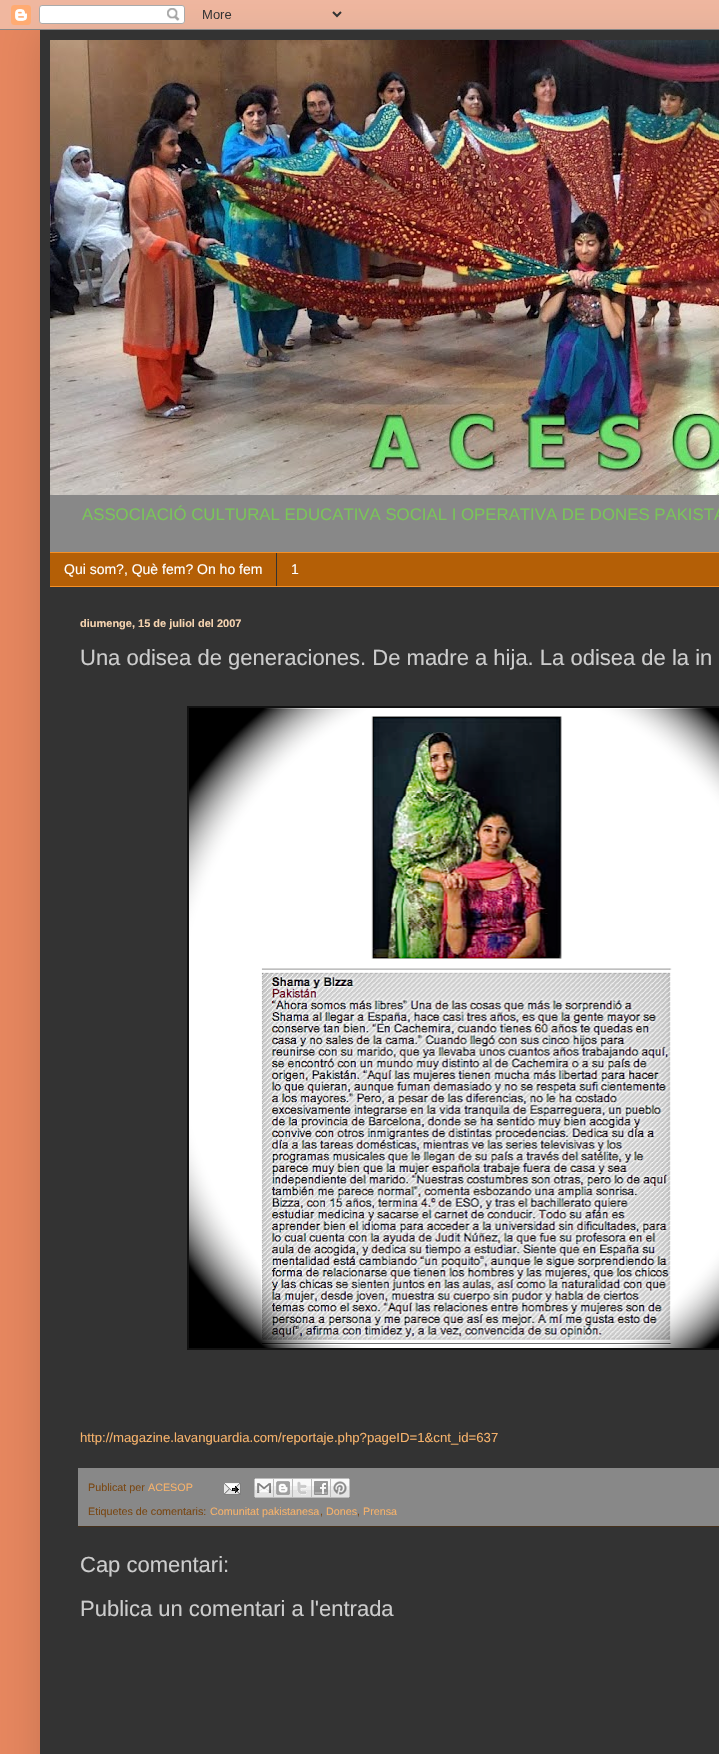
#include "include/core/SkBlurTypes.h"
#include "include/core/SkCanvas.h"
#include "include/core/SkData.h"
#include "include/core/SkFont.h"
#include "include/core/SkFontMgr.h"
#include "include/core/SkImage.h"
#include "include/core/SkMaskFilter.h"
#include "include/core/SkPaint.h"
#include "include/core/SkPathBuilder.h"
#include "include/core/SkTextBlob.h"
#include "include/effects/SkDashPathEffect.h"
#include "include/effects/SkGradientShader.h"
#include "include/utils/SkParsePath.h"

extern sk_sp<SkFontMgr> fontMgr;

void draw(SkCanvas* canvas) {
  SkPaint p;
  p.setAntiAlias(true);
  canvas->clear(SkColorSetRGB(231, 135, 95));
  p.setColor(SkColorSetARGB(38, 0, 0, 0));
  p.setMaskFilter(SkMaskFilter::MakeBlur(kNormal_SkBlurStyle, 20));
  canvas->drawRect(SkRect::MakeLTRB(40, 30, 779, 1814), p);
  p.setMaskFilter(nullptr);
  canvas->drawImageRect(SkImages::DeferredFromEncodedData(SkData::MakeFromFileName("images/1.png")), SkRect::MakeLTRB(0, 0, 719, 30), SkSamplingOptions());
  p.setColor(SkColorSetRGB(51, 51, 51));
  canvas->drawRect(SkRect::MakeLTRB(40, 30, 719, 1754), p);
  p.setColor(SkColorSetRGB(136, 136, 136));
  canvas->drawRect(SkRect::MakeLTRB(50, 495, 719, 552), p);
  canvas->drawImageRect(SkImages::DeferredFromEncodedData(SkData::MakeFromFileName("images/2.png")), SkRect::MakeLTRB(50, 40, 719, 495), SkSamplingOptions());
  p.setColor(SkColorSetRGB(180, 95, 6));
  canvas->drawRect(SkRect::MakeLTRB(50, 553, 719, 586), p);
  p.setColor(SkColorSetRGB(246, 144, 37));
  canvas->drawRect(SkRect::MakeLTRB(50, 552, 719, 553), p);
  canvas->drawRect(SkRect::MakeLTRB(50, 586, 719, 587), p);
  p.setColor(SkColorSetRGB(51, 51, 51));
  canvas->drawRect(SkRect::MakeLTRB(276, 553, 277, 586), p);
  p.setColor(SkColorSetRGB(17, 17, 17));
  canvas->drawRect(SkRect::MakeLTRB(187, 706, 719, 1350), p);
  canvas->drawImageRect(SkImages::DeferredFromEncodedData(SkData::MakeFromFileName("images/3.png")), SkRect::MakeLTRB(189, 708, 719, 1348), SkSamplingOptions());
  p.setColor(SkColorSetRGB(136, 136, 136));
  canvas->drawRect(SkRect::MakeLTRB(78, 1468, 719, 1526), p);
  p.setColor(SkColorSetRGB(70, 49, 28));
  canvas->drawRect(SkRect::MakeLTRB(78, 1526, 719, 1527), p);
  canvas->drawImageRect(SkImages::DeferredFromEncodedData(SkData::MakeFromFileName("images/4.png")), SkRect::MakeLTRB(224, 1482, 241, 1495), SkSamplingOptions());
  canvas->drawImageRect(SkImages::DeferredFromEncodedData(SkData::MakeFromFileName("images/5.png")), SkRect::MakeLTRB(254, 1478, 274, 1498), SkSamplingOptions());
  canvas->drawImageRect(SkImages::DeferredFromEncodedData(SkData::MakeFromFileName("images/6.png")), SkRect::MakeLTRB(274, 1478, 293, 1498), SkSamplingOptions());
  canvas->drawImageRect(SkImages::DeferredFromEncodedData(SkData::MakeFromFileName("images/7.png")), SkRect::MakeLTRB(293, 1478, 312, 1498), SkSamplingOptions());
  canvas->drawImageRect(SkImages::DeferredFromEncodedData(SkData::MakeFromFileName("images/8.png")), SkRect::MakeLTRB(312, 1478, 331, 1498), SkSamplingOptions());
  canvas->drawImageRect(SkImages::DeferredFromEncodedData(SkData::MakeFromFileName("images/9.png")), SkRect::MakeLTRB(331, 1478, 350, 1498), SkSamplingOptions());
  SkFont font1(fontMgr->matchFamilyStyle("Liberation Sans", SkFontStyle::Normal()), 16.8f);
  font1.setSubpixel(true);
  p.setColor(SkColorSetRGB(122, 196, 89));
  canvas->drawString("ASSOCIACIÓ CULTURAL EDUCATIVA SOCIAL I OPERATIVA DE DONES PAKISTA", 82, 520, font1, p);
  SkFont font2(fontMgr->matchFamilyStyle("Liberation Sans", SkFontStyle::Normal()), 14);
  font2.setSubpixel(true);
  p.setColor(SK_ColorWHITE);
  canvas->drawString("Qui som?, Què fem? On ho fem", 64, 574, font2, p);
  canvas->drawString("1", 291, 574, font2, p);
  SkFont font3(fontMgr->matchFamilyStyle("Liberation Sans", SkFontStyle::Bold()), 11);
  font3.setSubpixel(true);
  p.setColor(SkColorSetRGB(246, 212, 176));
  canvas->drawString("diumenge, 15 de juliol del 2007", 80, 627, font3, p);
  SkFont font4(fontMgr->matchFamilyStyle("Liberation Sans", SkFontStyle::Normal()), 22);
  font4.setSubpixel(true);
  p.setColor(SkColorSetRGB(204, 204, 204));
  canvas->drawString("Una odisea de generaciones. De madre a hija. La odisea de la in", 80, 665, font4, p);
  SkFont font5(fontMgr->matchFamilyStyle("Liberation Sans", SkFontStyle::Normal()), 13.2f);
  font5.setSubpixel(true);
  p.setColor(SkColorSetRGB(246, 178, 107));
  canvas->drawString("http://magazine.lavanguardia.com/reportaje.php?pageID=1&cnt_id=637", 80, 1442, font5, p);
  SkFont font6(fontMgr->matchFamilyStyle("Liberation Sans", SkFontStyle::Normal()), 10.75f);
  font6.setSubpixel(true);
  p.setColor(SkColorSetRGB(121, 71, 19));
  canvas->drawString("Publicat per", 88, 1491, font6, p);
  p.setColor(SkColorSetRGB(246, 178, 107));
  canvas->drawString("ACESOP", 148, 1491, font6, p);
  p.setColor(SkColorSetRGB(121, 71, 19));
  canvas->drawString("Etiquetes de comentaris:", 88, 1515, font6, p);
  p.setColor(SkColorSetRGB(246, 178, 107));
  canvas->drawString("Comunitat pakistanesa", 210, 1515, font6, p);
  p.setColor(SkColorSetRGB(121, 71, 19));
  canvas->drawString(",", 320, 1515, font6, p);
  p.setColor(SkColorSetRGB(246, 178, 107));
  canvas->drawString("Dones", 326, 1515, font6, p);
  p.setColor(SkColorSetRGB(121, 71, 19));
  canvas->drawString(",", 357, 1515, font6, p);
  p.setColor(SkColorSetRGB(246, 178, 107));
  canvas->drawString("Prensa", 363, 1515, font6, p);
  p.setColor(SkColorSetRGB(204, 204, 204));
  canvas->drawString("Cap comentari:", 80, 1572, font4, p);
  canvas->drawString("Publica un comentari a l'entrada", 80, 1616, font4, p);
}
